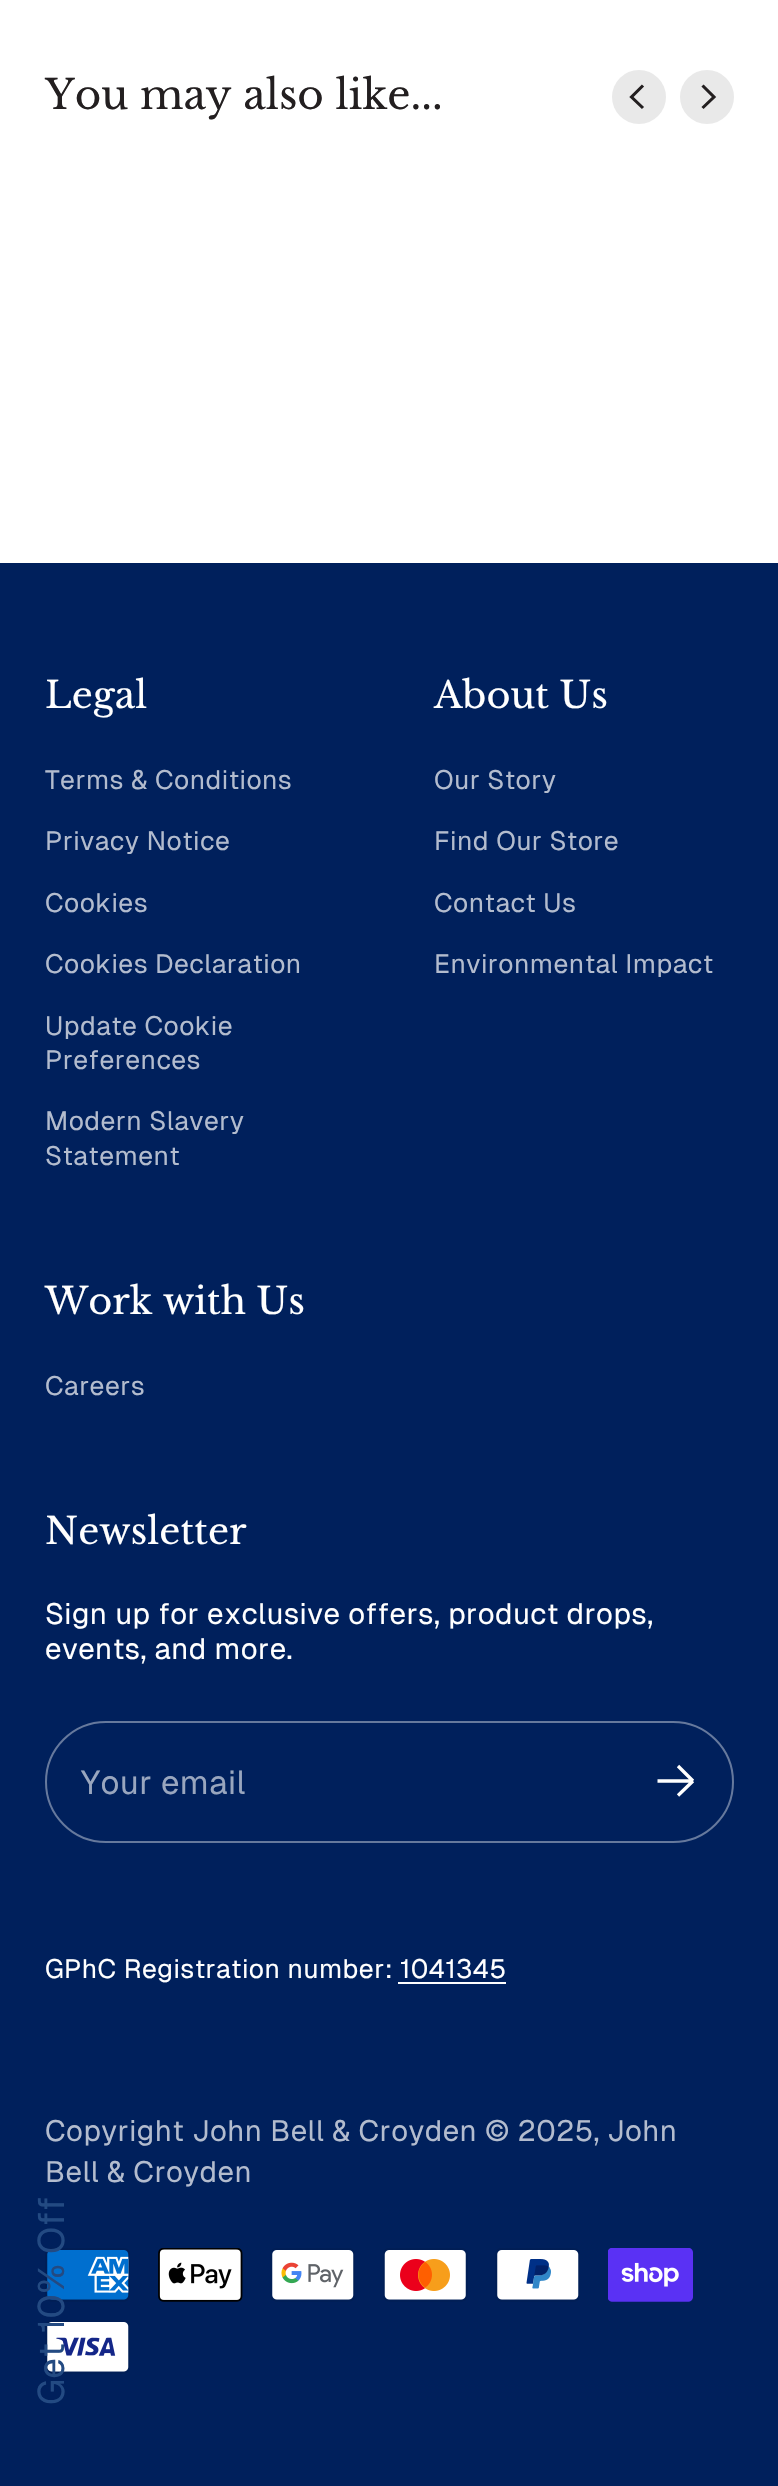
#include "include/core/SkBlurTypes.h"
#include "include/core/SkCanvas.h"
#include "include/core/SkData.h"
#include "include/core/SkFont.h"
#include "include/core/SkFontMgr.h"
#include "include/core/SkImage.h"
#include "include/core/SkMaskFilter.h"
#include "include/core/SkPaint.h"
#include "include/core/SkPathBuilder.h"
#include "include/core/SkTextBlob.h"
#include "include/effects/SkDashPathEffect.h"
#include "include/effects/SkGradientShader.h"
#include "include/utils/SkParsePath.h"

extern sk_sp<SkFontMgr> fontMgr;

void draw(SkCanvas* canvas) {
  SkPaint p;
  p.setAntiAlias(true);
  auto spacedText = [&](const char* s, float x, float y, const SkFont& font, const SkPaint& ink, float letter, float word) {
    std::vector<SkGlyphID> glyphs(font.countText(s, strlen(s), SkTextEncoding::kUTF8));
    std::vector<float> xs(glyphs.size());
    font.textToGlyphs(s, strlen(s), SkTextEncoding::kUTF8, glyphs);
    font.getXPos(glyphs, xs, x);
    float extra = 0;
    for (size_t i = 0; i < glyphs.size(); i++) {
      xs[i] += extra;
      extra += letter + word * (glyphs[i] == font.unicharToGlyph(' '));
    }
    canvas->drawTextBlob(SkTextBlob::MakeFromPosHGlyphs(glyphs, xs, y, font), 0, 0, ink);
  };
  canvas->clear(SK_ColorWHITE);
  p.setColor(SkColorSetRGB(233, 233, 233));
  canvas->drawCircle(639, 97, 27, p);
  p.setStyle(SkPaint::kStroke_Style);
  p.setStrokeWidth(3.1f);
  p.setColor(SkColorSetRGB(35, 31, 32));
  canvas->drawPath(SkPathBuilder().moveTo(643, 85.5f).lineTo(631.5f, 97).lineTo(643, 108).detach(), p);
  p.setStyle(SkPaint::kFill_Style);
  p.setColor(SkColorSetRGB(233, 233, 233));
  canvas->drawCircle(707, 97, 27, p);
  p.setStyle(SkPaint::kStroke_Style);
  p.setColor(SkColorSetRGB(35, 31, 32));
  canvas->drawPath(SkPathBuilder().moveTo(702.5f, 108).lineTo(714, 97).lineTo(702.5f, 85.5f).detach(), p);
  p.setStyle(SkPaint::kFill_Style);
  p.setColor(SkColorSetRGB(0, 32, 92));
  canvas->drawRect(SkRect::MakeLTRB(0, 563, 778, 2486), p);
  p.setStyle(SkPaint::kStroke_Style);
  p.setStrokeWidth(2);
  p.setColor(SkColorSetRGB(102, 121, 157));
  canvas->drawRoundRect(SkRect::MakeLTRB(46, 1722, 733, 1842), 60, 60, p);
  p.setStrokeWidth(3.3f);
  p.setColor(SK_ColorWHITE);
  canvas->drawPath(SkPathBuilder().moveTo(657.5f, 1781).lineTo(693, 1781).moveTo(693, 1781).lineTo(678, 1766).moveTo(693, 1781).lineTo(678, 1795.5f).detach(), p);
  p.setStyle(SkPaint::kFill_Style);
  canvas->drawRect(SkRect::MakeLTRB(398, 1982, 506, 1984), p);
  canvas->drawImageRect(SkImages::DeferredFromEncodedData(SkData::MakeFromFileName("images/1.png")), SkRect::MakeLTRB(45, 2248, 130, 2302), SkSamplingOptions());
  canvas->drawImageRect(SkImages::DeferredFromEncodedData(SkData::MakeFromFileName("images/2.png")), SkRect::MakeLTRB(158, 2248, 243, 2302), SkSamplingOptions());
  canvas->drawImageRect(SkImages::DeferredFromEncodedData(SkData::MakeFromFileName("images/3.png")), SkRect::MakeLTRB(270, 2248, 355, 2302), SkSamplingOptions());
  canvas->drawImageRect(SkImages::DeferredFromEncodedData(SkData::MakeFromFileName("images/4.png")), SkRect::MakeLTRB(383, 2248, 468, 2302), SkSamplingOptions());
  canvas->drawImageRect(SkImages::DeferredFromEncodedData(SkData::MakeFromFileName("images/5.png")), SkRect::MakeLTRB(495, 2248, 580, 2302), SkSamplingOptions());
  canvas->drawImageRect(SkImages::DeferredFromEncodedData(SkData::MakeFromFileName("images/6.png")), SkRect::MakeLTRB(608, 2248, 693, 2302), SkSamplingOptions());
  canvas->drawImageRect(SkImages::DeferredFromEncodedData(SkData::MakeFromFileName("images/7.png")), SkRect::MakeLTRB(45, 2320, 130, 2374), SkSamplingOptions());
  SkFont font1(fontMgr->matchFamilyStyle("Libre Baskerville", SkFontStyle::Normal()), 40.5f);
  font1.setSubpixel(true);
  p.setColor(SkColorSetRGB(35, 31, 32));
  canvas->drawString("You may also like...", 45, 109, font1, p);
  SkFont font2(fontMgr->matchFamilyStyle("Libre Baskerville", SkFontStyle::Normal()), 36.75f);
  font2.setSubpixel(true);
  p.setColor(SK_ColorWHITE);
  canvas->drawString("Legal", 45, 708, font2, p);
  SkFont font3(fontMgr->matchFamilyStyle("Geist", SkFontStyle::Normal()), 26.5f);
  font3.setSubpixel(true);
  p.setColor(SkColorSetRGB(179, 188, 206));
  spacedText("Terms & Conditions", 45, 789, font3, p, 0.45f, 0);
  spacedText("Privacy Notice", 45, 850, font3, p, 0.45f, 0);
  spacedText("Cookies", 45, 912, font3, p, 0.45f, 0);
  spacedText("Cookies Declaration", 45, 973, font3, p, 0.45f, 0);
  spacedText("Update Cookie", 45, 1035, font3, p, 0.45f, 0);
  spacedText("Preferences", 45, 1069, font3, p, 0.45f, 0);
  spacedText("Modern Slavery", 45, 1130, font3, p, 0.45f, 0);
  spacedText("Statement", 45, 1165, font3, p, 0.45f, 0);
  p.setColor(SK_ColorWHITE);
  canvas->drawString("About Us", 434, 708, font2, p);
  p.setColor(SkColorSetRGB(179, 188, 206));
  spacedText("Our Story", 434, 789, font3, p, 0.45f, 0);
  spacedText("Find Our Store", 434, 850, font3, p, 0.45f, 0);
  spacedText("Contact Us", 434, 912, font3, p, 0.45f, 0);
  spacedText("Environmental Impact", 434, 973, font3, p, 0.45f, 0);
  p.setColor(SK_ColorWHITE);
  canvas->drawString("Work with Us", 45, 1314, font2, p);
  p.setColor(SkColorSetRGB(179, 188, 206));
  spacedText("Careers", 45, 1395, font3, p, 0.45f, 0);
  p.setColor(SK_ColorWHITE);
  canvas->drawString("Newsletter", 45, 1544, font2, p);
  SkFont font4(fontMgr->matchFamilyStyle("Geist", SkFontStyle::Normal()), 29.4f);
  font4.setSubpixel(true);
  spacedText("Sign up for exclusive offers, product drops,", 45, 1624, font4, p, 0.45f, 0);
  spacedText("events, and more.", 45, 1659, font4, p, 0.45f, 0);
  SkFont font5(fontMgr->matchFamilyStyle("Geist", SkFontStyle::Normal()), 33);
  font5.setSubpixel(true);
  p.setColor(SkColorSetRGB(153, 166, 190));
  spacedText("Your email", 81, 1794, font5, p, 0.45f, 0);
  p.setColor(SK_ColorWHITE);
  spacedText("GPhC Registration number: 1041345", 45, 1978, font3, p, 0.45f, 0);
  p.setColor(SkColorSetRGB(179, 188, 206));
  spacedText("Copyright John Bell & Croyden © 2025,", 45, 2141, font4, p, 0.45f, 0);
  spacedText("John", 607, 2141, font4, p, 0.45f, 0);
  spacedText("Bell & Croyden", 45, 2182, font4, p, 0.45f, 0);
  SkFont font6(fontMgr->matchFamilyStyle("Geist", SkFontStyle::Normal()), 36.75f);
  font6.setSubpixel(true);
  p.setColor(SkColorSetRGB(35, 74, 130));
  canvas->save();
  canvas->rotate(-90, 64, 2405);
  spacedText("Get 10% Off", 64, 2405, font6, p, 0.5f, 0);
  canvas->restore();
}
